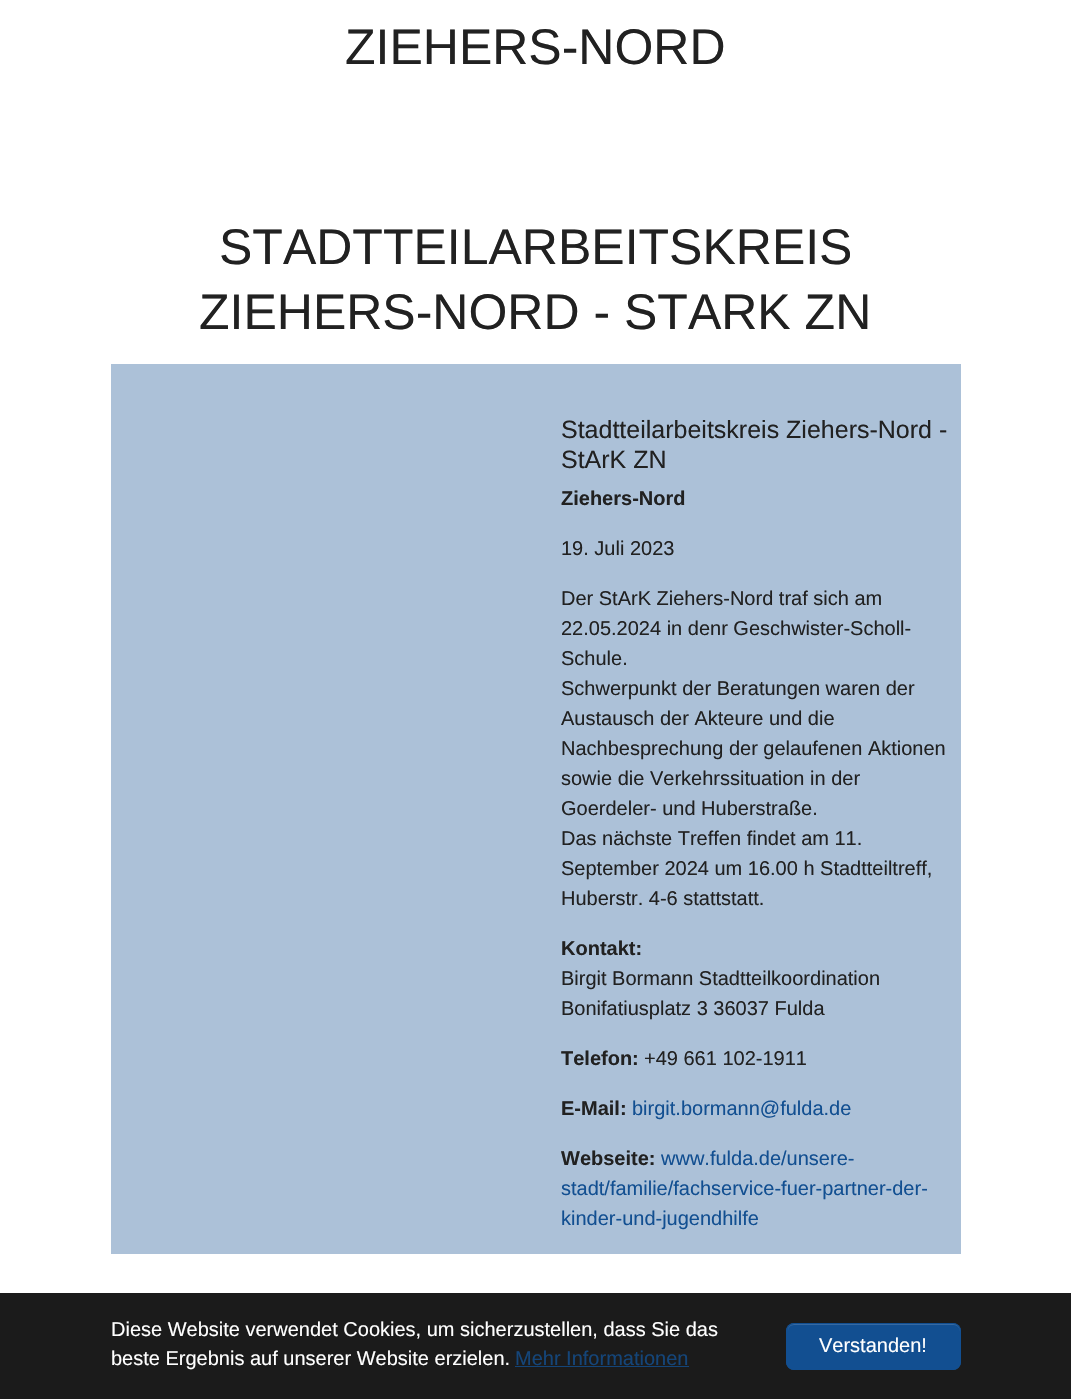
#include "include/core/SkBlurTypes.h"
#include "include/core/SkCanvas.h"
#include "include/core/SkData.h"
#include "include/core/SkFont.h"
#include "include/core/SkFontMgr.h"
#include "include/core/SkImage.h"
#include "include/core/SkMaskFilter.h"
#include "include/core/SkPaint.h"
#include "include/core/SkPathBuilder.h"
#include "include/core/SkTextBlob.h"
#include "include/effects/SkDashPathEffect.h"
#include "include/effects/SkGradientShader.h"
#include "include/utils/SkParsePath.h"

extern sk_sp<SkFontMgr> fontMgr;

void draw(SkCanvas* canvas) {
  SkPaint p;
  p.setAntiAlias(true);
  canvas->clear(SK_ColorWHITE);
  p.setColor(SkColorSetRGB(172, 193, 216));
  canvas->drawRect(SkRect::MakeLTRB(111, 364, 961, 1254), p);
  p.setColor(SkColorSetRGB(27, 27, 27));
  canvas->drawRect(SkRect::MakeLTRB(0, 1293, 1071, 1399), p);
  p.setColor(SkColorSetRGB(20, 69, 121));
  canvas->drawRect(SkRect::MakeLTRB(515, 1366, 689, 1367), p);
  p.setColor(SkColorSetRGB(18, 79, 145));
  canvas->drawRoundRect(SkRect::MakeLTRB(786, 1323, 961, 1370), 8, 8, p);
  p.setColor(SkColorSetRGB(54, 105, 162));
  canvas->drawPath(SkPathBuilder().moveTo(794, 1325).lineTo(954, 1325).cubicTo(957, 1325, 960, 1328, 960, 1331).lineTo(960, 1330).cubicTo(960, 1327, 957, 1324, 954, 1324).lineTo(794, 1324).cubicTo(791, 1324, 788, 1327, 788, 1330).lineTo(788, 1331).cubicTo(788, 1328, 790, 1325, 794, 1325).close().detach(), p);
  p.setStyle(SkPaint::kStroke_Style);
  p.setStrokeWidth(1);
  p.setColor(SkColorSetRGB(18, 79, 145));
  canvas->drawRoundRect(SkRect::MakeLTRB(786.5f, 1323.5f, 960.5f, 1369.5f), 7.5f, 7.5f, p);
  SkFont font1(fontMgr->matchFamilyStyle("Liberation Sans", SkFontStyle::Normal()), 50);
  font1.setSubpixel(true);
  p.setStyle(SkPaint::kFill_Style);
  p.setColor(SkColorSetRGB(33, 33, 33));
  canvas->drawString("ZIEHERS-NORD", 345, 64, font1, p);
  canvas->drawString("STADTTEILARBEITSKREIS", 219, 264, font1, p);
  canvas->drawString("ZIEHERS-NORD - STARK ZN", 199, 329, font1, p);
  SkFont font2(fontMgr->matchFamilyStyle("Liberation Sans", SkFontStyle::Normal()), 25);
  font2.setSubpixel(true);
  canvas->drawString("Stadtteilarbeitskreis Ziehers-Nord -", 561, 438, font2, p);
  canvas->drawString("StArK ZN", 561, 468, font2, p);
  SkFont font3(fontMgr->matchFamilyStyle("Liberation Sans", SkFontStyle::Bold()), 20);
  font3.setSubpixel(true);
  canvas->drawString("Ziehers-Nord", 561, 505, font3, p);
  SkFont font4(fontMgr->matchFamilyStyle("Liberation Sans", SkFontStyle::Normal()), 20);
  font4.setSubpixel(true);
  canvas->drawString("19. Juli 2023", 561, 555, font4, p);
  canvas->drawString("Der StArK Ziehers-Nord traf sich am", 561, 605, font4, p);
  canvas->drawString("22.05.2024 in denr Geschwister-Scholl-", 561, 635, font4, p);
  canvas->drawString("Schule.", 561, 665, font4, p);
  canvas->drawString("Schwerpunkt der Beratungen waren der", 561, 695, font4, p);
  canvas->drawString("Austausch der Akteure und die", 561, 725, font4, p);
  canvas->drawString("Nachbesprechung der gelaufenen Aktionen", 561, 755, font4, p);
  canvas->drawString("sowie die Verkehrssituation in der", 561, 785, font4, p);
  canvas->drawString("Goerdeler- und Huberstraße.", 561, 815, font4, p);
  canvas->drawString("Das nächste Treffen findet am 11.", 561, 845, font4, p);
  canvas->drawString("September 2024 um 16.00 h Stadtteiltreff,", 561, 875, font4, p);
  canvas->drawString("Huberstr. 4-6 stattstatt.", 561, 905, font4, p);
  canvas->drawString("Kontakt:", 561, 955, font3, p);
  canvas->drawString("Birgit Bormann Stadtteilkoordination", 561, 985, font4, p);
  canvas->drawString("Bonifatiusplatz 3 36037 Fulda", 561, 1015, font4, p);
  canvas->drawString("Telefon:", 561, 1065, font3, p);
  canvas->drawString("+49 661 102-1911", 644, 1065, font4, p);
  canvas->drawString("E-Mail:", 561, 1115, font3, p);
  p.setColor(SkColorSetRGB(18, 79, 145));
  canvas->drawString("birgit.bormann@fulda.de", 632, 1115, font4, p);
  p.setColor(SkColorSetRGB(33, 33, 33));
  canvas->drawString("Webseite:", 561, 1165, font3, p);
  p.setColor(SkColorSetRGB(18, 79, 145));
  canvas->drawString("www.fulda.de/unsere-", 661, 1165, font4, p);
  canvas->drawString("stadt/familie/fachservice-fuer-partner-der-", 561, 1195, font4, p);
  canvas->drawString("kinder-und-jugendhilfe", 561, 1225, font4, p);
  p.setColor(SK_ColorWHITE);
  canvas->drawString("Diese Website verwendet Cookies, um sicherzustellen, dass Sie das", 111, 1336, font4, p);
  canvas->drawString("beste Ergebnis auf unserer Website erzielen.", 111, 1365, font4, p);
  p.setColor(SkColorSetRGB(20, 69, 121));
  canvas->drawString("Mehr Informationen", 515, 1365, font4, p);
  p.setColor(SK_ColorWHITE);
  canvas->drawString("Verstanden!", 819, 1352, font4, p);
}
